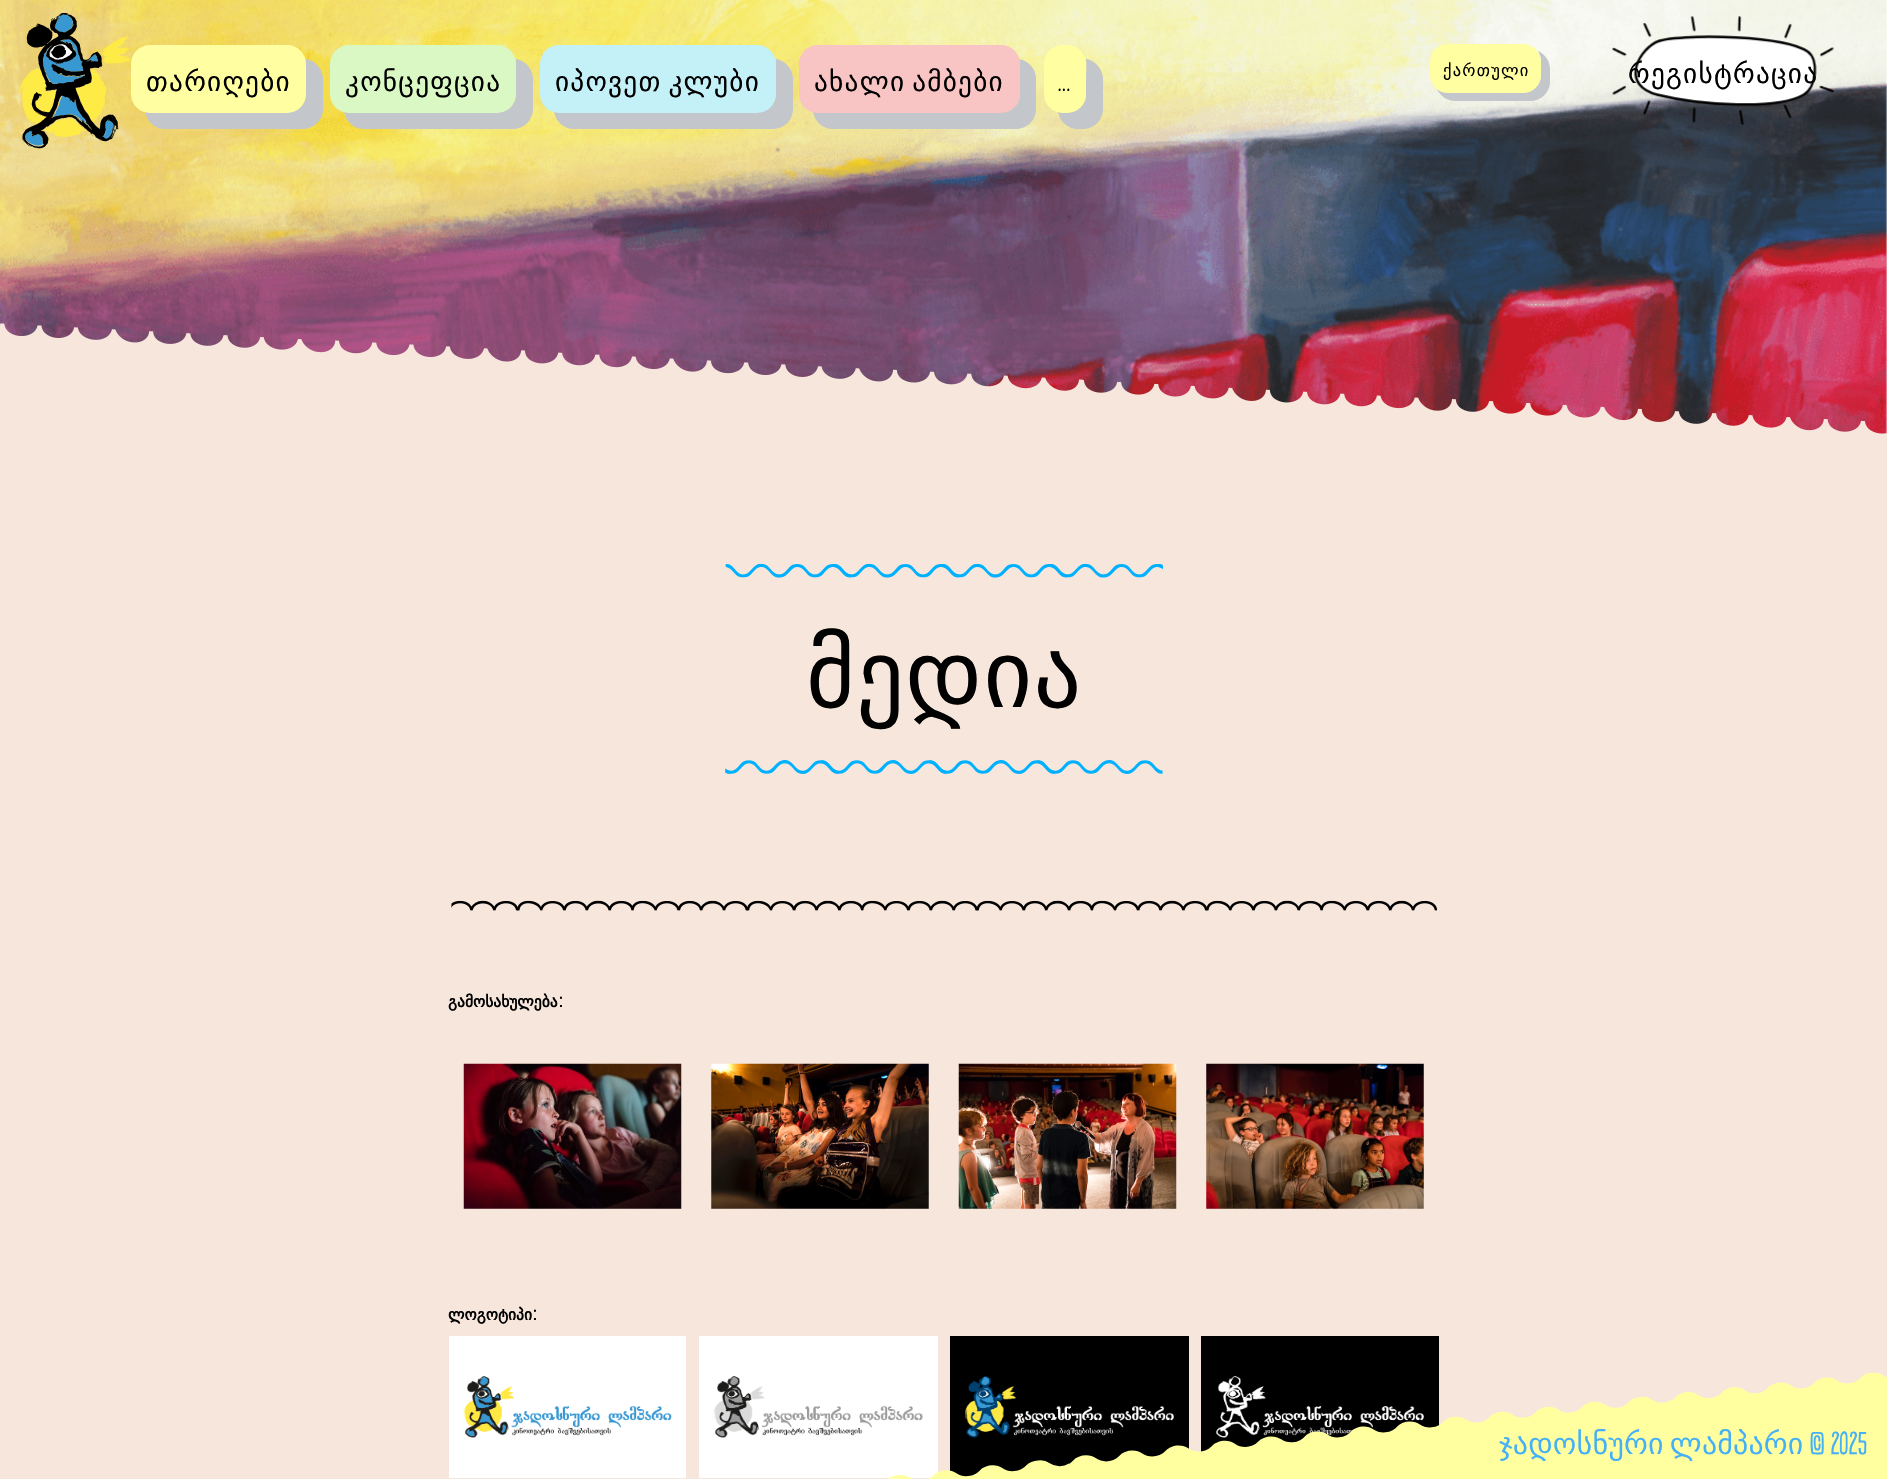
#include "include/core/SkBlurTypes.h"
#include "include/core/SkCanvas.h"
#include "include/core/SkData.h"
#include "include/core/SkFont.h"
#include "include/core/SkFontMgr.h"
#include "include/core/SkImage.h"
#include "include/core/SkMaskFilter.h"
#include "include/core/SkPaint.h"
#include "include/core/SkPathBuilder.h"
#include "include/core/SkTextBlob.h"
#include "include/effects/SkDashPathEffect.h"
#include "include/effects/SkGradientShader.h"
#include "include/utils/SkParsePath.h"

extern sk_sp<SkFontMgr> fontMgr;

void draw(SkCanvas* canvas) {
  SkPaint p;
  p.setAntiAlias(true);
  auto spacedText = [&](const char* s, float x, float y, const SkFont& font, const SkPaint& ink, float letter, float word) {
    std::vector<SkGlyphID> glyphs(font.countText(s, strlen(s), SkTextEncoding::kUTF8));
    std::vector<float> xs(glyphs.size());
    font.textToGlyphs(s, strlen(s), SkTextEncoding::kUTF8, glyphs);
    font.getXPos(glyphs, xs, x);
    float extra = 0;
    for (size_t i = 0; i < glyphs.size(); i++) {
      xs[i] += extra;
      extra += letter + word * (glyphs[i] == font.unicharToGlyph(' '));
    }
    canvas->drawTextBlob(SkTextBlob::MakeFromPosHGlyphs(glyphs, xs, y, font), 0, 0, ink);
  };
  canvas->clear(SK_ColorWHITE);
  canvas->drawImageRect(SkImages::DeferredFromEncodedData(SkData::MakeFromFileName("images/1.png")), SkRect::MakeLTRB(0, 0, 1887, 434), SkSamplingOptions());
  canvas->drawImageRect(SkImages::DeferredFromEncodedData(SkData::MakeFromFileName("images/2.png")), SkRect::MakeLTRB(0, 323, 1887, 438), SkSamplingOptions());
  canvas->drawImageRect(SkImages::DeferredFromEncodedData(SkData::MakeFromFileName("images/3.png")), SkRect::MakeLTRB(19, 13, 131, 149), SkSamplingOptions());
  p.setColor(SkColorSetRGB(195, 198, 202));
  canvas->drawPath(SkPathBuilder().moveTo(145, 112).cubicTo(147, 122, 155, 129, 165, 129).lineTo(303, 129).cubicTo(314, 129, 323, 120, 323, 109).lineTo(323, 79).cubicTo(323, 69, 315, 60, 306, 59).lineTo(306, 64).lineTo(306, 94).cubicTo(306, 104, 298, 112, 288, 112).lineTo(150, 112).close().detach(), p);
  p.setColor(SkColorSetRGB(255, 255, 161));
  canvas->drawRoundRect(SkRect::MakeLTRB(131, 45, 306, 113), 19, 19, p);
  p.setColor(SkColorSetRGB(195, 198, 202));
  canvas->drawPath(SkPathBuilder().moveTo(344, 112).cubicTo(346, 122, 354, 129, 364, 129).lineTo(513, 129).cubicTo(524, 129, 533, 120, 533, 109).lineTo(533, 79).cubicTo(533, 69, 525, 60, 516, 59).lineTo(516, 64).lineTo(516, 94).cubicTo(516, 104, 508, 112, 498, 112).lineTo(349, 112).close().detach(), p);
  p.setColor(SkColorSetRGB(218, 248, 196));
  canvas->drawRoundRect(SkRect::MakeLTRB(330, 45, 516, 113), 19, 19, p);
  p.setColor(SkColorSetRGB(195, 198, 202));
  canvas->drawPath(SkPathBuilder().moveTo(554, 112).cubicTo(556, 122, 564, 129, 574, 129).lineTo(773, 129).cubicTo(784, 129, 793, 120, 793, 109).lineTo(793, 79).cubicTo(793, 69, 785, 60, 776, 59).lineTo(776, 64).lineTo(776, 94).cubicTo(776, 104, 768, 112, 758, 112).lineTo(559, 112).close().detach(), p);
  p.setColor(SkColorSetRGB(196, 240, 248));
  canvas->drawRoundRect(SkRect::MakeLTRB(540, 45, 776, 113), 19, 19, p);
  p.setColor(SkColorSetRGB(195, 198, 202));
  canvas->drawPath(SkPathBuilder().moveTo(813, 112).cubicTo(815, 122, 823, 129, 833, 129).lineTo(1016, 129).cubicTo(1027, 129, 1036, 120, 1036, 109).lineTo(1036, 79).cubicTo(1036, 69, 1029, 61, 1019, 59).lineTo(1020, 64).lineTo(1020, 94).cubicTo(1020, 104, 1012, 112, 1001, 112).lineTo(818, 112).close().detach(), p);
  p.setColor(SkColorSetRGB(248, 196, 196));
  canvas->drawRoundRect(SkRect::MakeLTRB(799, 45, 1020, 113), 19, 19, p);
  p.setColor(SkColorSetRGB(195, 198, 202));
  canvas->drawPath(SkPathBuilder().moveTo(1058, 112).cubicTo(1060, 122, 1068, 129, 1078, 129).lineTo(1083, 129).cubicTo(1094, 129, 1103, 120, 1103, 109).lineTo(1103, 79).cubicTo(1103, 69, 1095, 60, 1086, 59).cubicTo(1087, 65, 1086, 72, 1086, 79).lineTo(1086, 98).cubicTo(1083, 110, 1070, 115, 1058, 112).close().detach(), p);
  p.setColor(SkColorSetRGB(255, 255, 161));
  canvas->drawRoundRect(SkRect::MakeLTRB(1044, 45, 1086, 113), 19, 19, p);
  p.setColor(SkColorSetRGB(195, 198, 202));
  canvas->drawPath(SkPathBuilder().moveTo(1437, 89).cubicTo(1440, 96, 1447, 101, 1455, 101).lineTo(1531, 101).cubicTo(1541, 101, 1550, 92, 1550, 82).lineTo(1550, 69).cubicTo(1550, 61, 1545, 54, 1538, 51).cubicTo(1540, 54, 1541, 58, 1541, 61).lineTo(1541, 75).cubicTo(1541, 85, 1533, 92, 1524, 92).lineTo(1448, 92).cubicTo(1444, 92, 1440, 91, 1437, 89).close().detach(), p);
  p.setColor(SkColorSetRGB(255, 255, 161));
  canvas->drawRoundRect(SkRect::MakeLTRB(1430, 44, 1541, 93), 18, 18, p);
  canvas->drawImageRect(SkImages::DeferredFromEncodedData(SkData::MakeFromFileName("images/4.png")), SkRect::MakeLTRB(1612, 16, 1835, 126), SkSamplingOptions());
  p.setColor(SkColorSetRGB(247, 230, 220));
  canvas->drawRect(SkRect::MakeLTRB(0, 438, 1887, 1479), p);
  canvas->drawImageRect(SkImages::DeferredFromEncodedData(SkData::MakeFromFileName("images/5.png")), SkRect::MakeLTRB(725, 563, 1163, 578), SkSamplingOptions());
  canvas->drawImageRect(SkImages::DeferredFromEncodedData(SkData::MakeFromFileName("images/6.png")), SkRect::MakeLTRB(725, 760, 1163, 774), SkSamplingOptions());
  canvas->drawImageRect(SkImages::DeferredFromEncodedData(SkData::MakeFromFileName("images/7.png")), SkRect::MakeLTRB(451, 900, 1437, 911), SkSamplingOptions());
  canvas->drawImageRect(SkImages::DeferredFromEncodedData(SkData::MakeFromFileName("images/8.png")), SkRect::MakeLTRB(463, 1063, 682, 1209), SkSamplingOptions());
  canvas->drawImageRect(SkImages::DeferredFromEncodedData(SkData::MakeFromFileName("images/9.png")), SkRect::MakeLTRB(711, 1063, 929, 1209), SkSamplingOptions());
  canvas->drawImageRect(SkImages::DeferredFromEncodedData(SkData::MakeFromFileName("images/10.png")), SkRect::MakeLTRB(958, 1063, 1177, 1209), SkSamplingOptions());
  canvas->drawImageRect(SkImages::DeferredFromEncodedData(SkData::MakeFromFileName("images/11.png")), SkRect::MakeLTRB(1206, 1063, 1424, 1209), SkSamplingOptions());
  p.setColor(SK_ColorWHITE);
  canvas->drawRect(SkRect::MakeLTRB(449, 1336, 686, 1478), p);
  canvas->drawImageRect(SkImages::DeferredFromEncodedData(SkData::MakeFromFileName("images/12.png")), SkRect::MakeLTRB(463, 1376, 672, 1438), SkSamplingOptions());
  canvas->drawRect(SkRect::MakeLTRB(699, 1336, 938, 1478), p);
  canvas->drawImageRect(SkImages::DeferredFromEncodedData(SkData::MakeFromFileName("images/13.png")), SkRect::MakeLTRB(713, 1376, 923, 1438), SkSamplingOptions());
  p.setColor(SK_ColorBLACK);
  canvas->drawRect(SkRect::MakeLTRB(950, 1336, 1189, 1477), p);
  canvas->drawImageRect(SkImages::DeferredFromEncodedData(SkData::MakeFromFileName("images/14.png")), SkRect::MakeLTRB(965, 1376, 1174, 1438), SkSamplingOptions());
  canvas->drawRect(SkRect::MakeLTRB(1201, 1336, 1439, 1452), p);
  canvas->drawImageRect(SkImages::DeferredFromEncodedData(SkData::MakeFromFileName("images/15.png")), SkRect::MakeLTRB(1216, 1376, 1424, 1438), SkSamplingOptions());
  canvas->drawImageRect(SkImages::DeferredFromEncodedData(SkData::MakeFromFileName("images/16.png")), SkRect::MakeLTRB(888, 1373, 1887, 1479), SkSamplingOptions());
  SkFont font1(fontMgr->matchFamilyStyle("DejaVu Sans", SkFontStyle::Normal()), 27.25f);
  font1.setSubpixel(true);
  spacedText("თარიღები", 146, 91, font1, p, 1.25f, 0);
  spacedText("კონცეფცია", 345, 91, font1, p, 1.25f, 0);
  spacedText("იპოვეთ კლუბი", 555, 91, font1, p, 1.25f, -3);
  spacedText("ახალი ამბები", 814, 91, font1, p, 1.25f, -3);
  SkFont font2(fontMgr->matchFamilyStyle("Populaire", SkFontStyle(500, SkFontStyle::kNormal_Width, SkFontStyle::kUpright_Slant)), 27.25f);
  font2.setSubpixel(true);
  spacedText("...", 1058, 91, font2, p, 1.25f, 0);
  SkFont font3(fontMgr->matchFamilyStyle("DejaVu Sans", SkFontStyle::Normal()), 16.5f);
  font3.setSubpixel(true);
  spacedText("ქართული", 1443, 76, font3, p, 1.25f, 0);
  spacedText("რეგისტრაცია", 1628, 83, font1, p, 1.25f, 0);
  SkFont font4(fontMgr->matchFamilyStyle("DejaVu Sans", SkFontStyle::Normal()), 94);
  font4.setSubpixel(true);
  spacedText("მედია", 806, 707, font4, p, 1.25f, 0);
  SkFont font5(fontMgr->matchFamilyStyle("DejaVu Sans", SkFontStyle::Bold()), 15.5f);
  font5.setSubpixel(true);
  canvas->drawString("გამოსახულება", 448, 1007, font5, p);
  SkFont font6(fontMgr->matchFamilyStyle("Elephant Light", SkFontStyle::Bold()), 15.5f);
  font6.setSubpixel(true);
  canvas->drawString(":", 559, 1007, font6, p);
  canvas->drawString("ლოგოტიპი", 448, 1320, font5, p);
  canvas->drawString(":", 533, 1320, font6, p);
}
